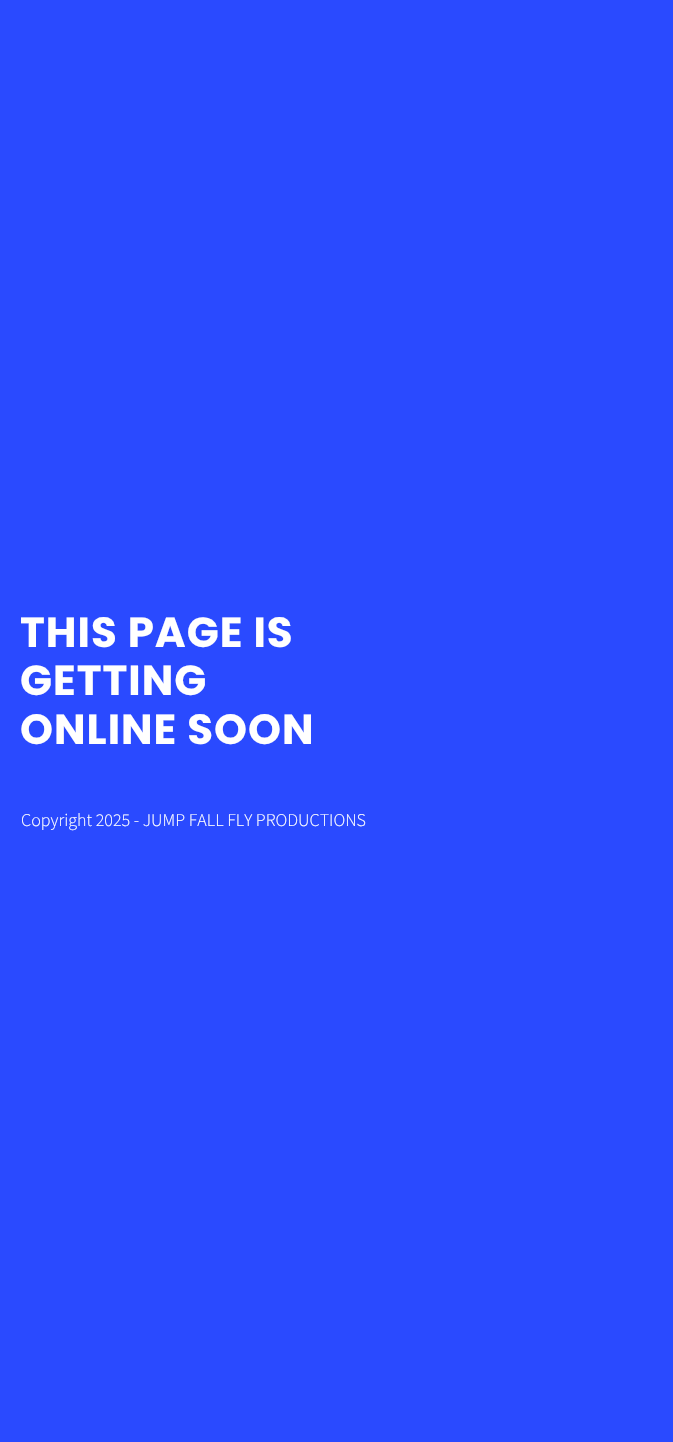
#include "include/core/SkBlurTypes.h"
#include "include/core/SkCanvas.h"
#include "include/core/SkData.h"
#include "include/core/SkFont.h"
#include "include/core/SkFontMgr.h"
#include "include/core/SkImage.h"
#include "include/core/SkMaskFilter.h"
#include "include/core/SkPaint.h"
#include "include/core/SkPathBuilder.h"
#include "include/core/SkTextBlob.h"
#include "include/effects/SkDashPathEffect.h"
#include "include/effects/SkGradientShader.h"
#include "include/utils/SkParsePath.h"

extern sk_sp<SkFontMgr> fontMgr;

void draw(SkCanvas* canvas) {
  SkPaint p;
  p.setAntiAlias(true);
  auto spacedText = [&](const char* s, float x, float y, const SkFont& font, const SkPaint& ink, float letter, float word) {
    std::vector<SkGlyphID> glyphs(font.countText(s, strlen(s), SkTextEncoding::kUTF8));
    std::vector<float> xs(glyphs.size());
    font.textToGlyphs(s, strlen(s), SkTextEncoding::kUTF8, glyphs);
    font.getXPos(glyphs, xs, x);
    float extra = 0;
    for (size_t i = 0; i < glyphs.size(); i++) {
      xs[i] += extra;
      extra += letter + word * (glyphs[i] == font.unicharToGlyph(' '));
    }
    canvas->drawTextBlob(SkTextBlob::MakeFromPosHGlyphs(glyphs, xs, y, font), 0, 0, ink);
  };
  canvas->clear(SkColorSetRGB(42, 74, 255));
  SkFont font1(fontMgr->matchFamilyStyle("Poppins", SkFontStyle::Bold()), 42);
  font1.setSubpixel(true);
  p.setColor(SK_ColorWHITE);
  spacedText("THIS PAGE IS", 20, 647, font1, p, 1, 0);
  spacedText("GETTING", 20, 695, font1, p, 1, 0);
  spacedText("ONLINE SOON", 20, 744, font1, p, 1, 0);
  SkFont font2(fontMgr->matchFamilyStyle("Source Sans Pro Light", SkFontStyle(300, SkFontStyle::kNormal_Width, SkFontStyle::kUpright_Slant)), 18);
  font2.setSubpixel(true);
  canvas->drawString("Copyright 2025 - JUMP FALL FLY PRODUCTIONS", 21, 826, font2, p);
}
